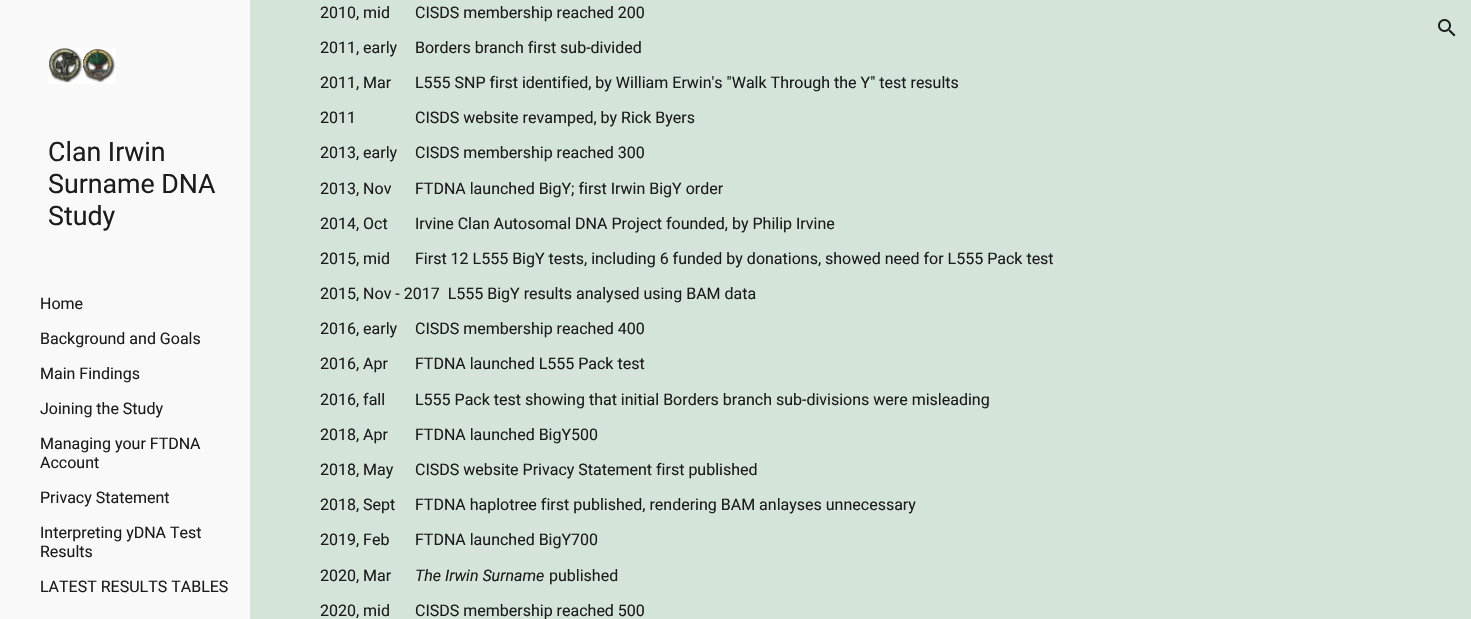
#include "include/core/SkBlurTypes.h"
#include "include/core/SkCanvas.h"
#include "include/core/SkData.h"
#include "include/core/SkFont.h"
#include "include/core/SkFontMgr.h"
#include "include/core/SkImage.h"
#include "include/core/SkMaskFilter.h"
#include "include/core/SkPaint.h"
#include "include/core/SkPathBuilder.h"
#include "include/core/SkTextBlob.h"
#include "include/effects/SkDashPathEffect.h"
#include "include/effects/SkGradientShader.h"
#include "include/utils/SkParsePath.h"

extern sk_sp<SkFontMgr> fontMgr;

void draw(SkCanvas* canvas) {
  SkPaint p;
  p.setAntiAlias(true);
  canvas->clear(SkColorSetRGB(213, 228, 217));
  canvas->drawImageRect(SkImages::DeferredFromEncodedData(SkData::MakeFromFileName("images/1.png")), SkRect::MakeLTRB(1438, 19, 1456, 37), SkSamplingOptions());
  p.setColor(SkColorSetRGB(249, 249, 249));
  canvas->drawRect(SkRect::MakeLTRB(0, 0, 250, 619), p);
  canvas->drawImageRect(SkImages::DeferredFromEncodedData(SkData::MakeFromFileName("images/2.png")), SkRect::MakeLTRB(48, 48, 116, 84), SkSamplingOptions());
  SkFont font1(fontMgr->matchFamilyStyle("Roboto", SkFontStyle::Normal()), 26.75f);
  font1.setSubpixel(true);
  p.setColor(SkColorSetRGB(28, 28, 28));
  canvas->drawString("Clan Irwin", 48, 161, font1, p);
  canvas->drawString("Surname DNA", 48, 193, font1, p);
  canvas->drawString("Study", 48, 225, font1, p);
  SkFont font2(fontMgr->matchFamilyStyle("Roboto", SkFontStyle::Normal()), 16);
  font2.setSubpixel(true);
  canvas->drawString("Home", 40, 309, font2, p);
  canvas->drawString("Background and Goals", 40, 344, font2, p);
  canvas->drawString("Main Findings", 40, 379, font2, p);
  canvas->drawString("Joining the Study", 40, 414, font2, p);
  canvas->drawString("Managing your FTDNA", 40, 449, font2, p);
  canvas->drawString("Account", 40, 468, font2, p);
  canvas->drawString("Privacy Statement", 40, 503, font2, p);
  canvas->drawString("Interpreting yDNA Test", 40, 538, font2, p);
  canvas->drawString("Results", 40, 557, font2, p);
  canvas->drawString("LATEST RESULTS TABLES", 40, 592, font2, p);
  canvas->drawString("2010, mid", 320, 18, font2, p);
  canvas->drawString("CISDS membership reached 200", 415, 18, font2, p);
  canvas->drawString("2011, early", 320, 53, font2, p);
  canvas->drawString("Borders branch first sub-divided", 415, 53, font2, p);
  canvas->drawString("2011, Mar", 320, 88, font2, p);
  canvas->drawString("L555 SNP first identified, by William Erwin's \"Walk Through the Y\" test results", 415, 88, font2, p);
  canvas->drawString("2011", 320, 123, font2, p);
  canvas->drawString("CISDS website revamped, by Rick Byers", 415, 123, font2, p);
  canvas->drawString("2013, early", 320, 158, font2, p);
  canvas->drawString("CISDS membership reached 300", 415, 158, font2, p);
  canvas->drawString("2013, Nov", 320, 194, font2, p);
  canvas->drawString("FTDNA launched BigY; first Irwin BigY order", 415, 194, font2, p);
  canvas->drawString("2014, Oct", 320, 229, font2, p);
  canvas->drawString("Irvine Clan Autosomal DNA Project founded, by Philip Irvine", 415, 229, font2, p);
  canvas->drawString("2015, mid", 320, 264, font2, p);
  canvas->drawString("First 12 L555 BigY tests, including 6 funded by donations, showed need for L555 Pack test", 415, 264, font2, p);
  canvas->drawString("2015, Nov - 2017  L555 BigY results analysed using BAM data", 320, 299, font2, p);
  canvas->drawString("2016, early", 320, 334, font2, p);
  canvas->drawString("CISDS membership reached 400", 415, 334, font2, p);
  canvas->drawString("2016, Apr", 320, 369, font2, p);
  canvas->drawString("FTDNA launched L555 Pack test", 415, 369, font2, p);
  canvas->drawString("2016, fall", 320, 405, font2, p);
  canvas->drawString("L555 Pack test showing that initial Borders branch sub-divisions were misleading", 415, 405, font2, p);
  canvas->drawString("2018, Apr", 320, 440, font2, p);
  canvas->drawString("FTDNA launched BigY500", 415, 440, font2, p);
  canvas->drawString("2018, May", 320, 475, font2, p);
  canvas->drawString("CISDS website Privacy Statement first published", 415, 475, font2, p);
  canvas->drawString("2018, Sept", 320, 510, font2, p);
  canvas->drawString("FTDNA haplotree first published, rendering BAM anlayses unnecessary", 415, 510, font2, p);
  canvas->drawString("2019, Feb", 320, 545, font2, p);
  canvas->drawString("FTDNA launched BigY700", 415, 545, font2, p);
  canvas->drawString("2020, Mar", 320, 581, font2, p);
  SkFont font3(fontMgr->matchFamilyStyle("Roboto", SkFontStyle::Italic()), 16);
  font3.setSubpixel(true);
  canvas->drawString("The Irwin Surname", 415, 581, font3, p);
  canvas->drawString("published", 549, 581, font2, p);
  canvas->drawString("2020, mid", 320, 616, font2, p);
  canvas->drawString("CISDS membership reached 500", 415, 616, font2, p);
}
